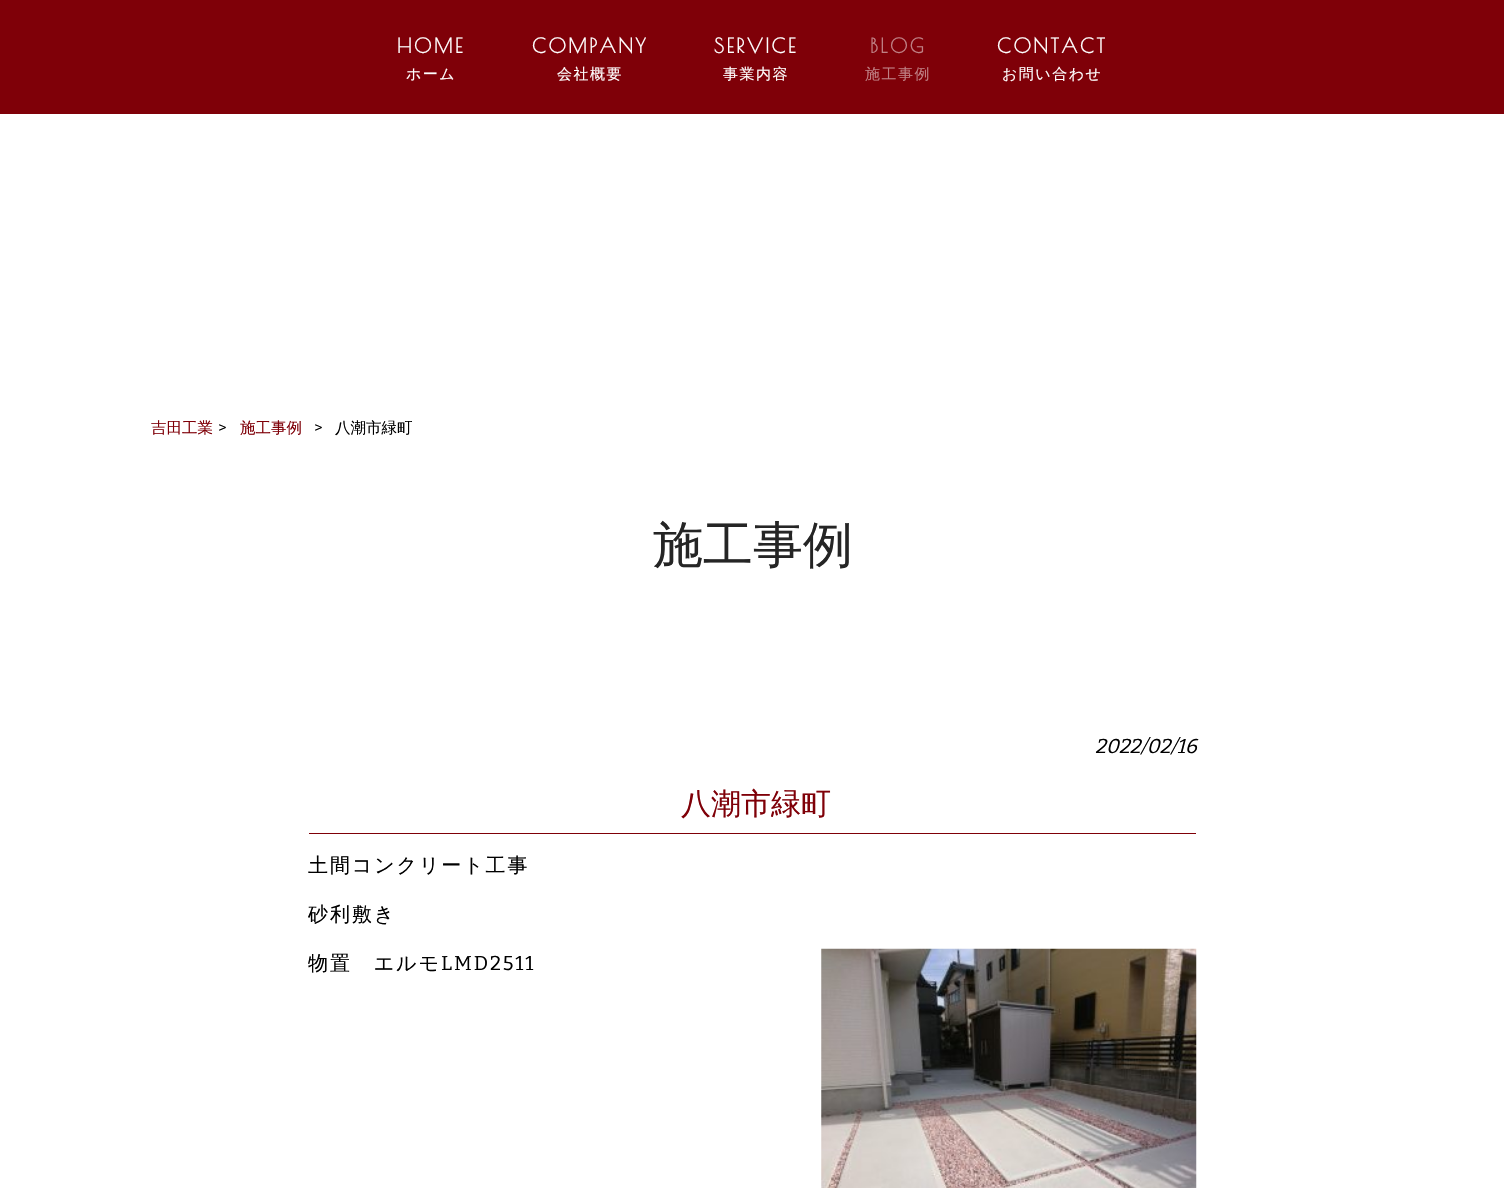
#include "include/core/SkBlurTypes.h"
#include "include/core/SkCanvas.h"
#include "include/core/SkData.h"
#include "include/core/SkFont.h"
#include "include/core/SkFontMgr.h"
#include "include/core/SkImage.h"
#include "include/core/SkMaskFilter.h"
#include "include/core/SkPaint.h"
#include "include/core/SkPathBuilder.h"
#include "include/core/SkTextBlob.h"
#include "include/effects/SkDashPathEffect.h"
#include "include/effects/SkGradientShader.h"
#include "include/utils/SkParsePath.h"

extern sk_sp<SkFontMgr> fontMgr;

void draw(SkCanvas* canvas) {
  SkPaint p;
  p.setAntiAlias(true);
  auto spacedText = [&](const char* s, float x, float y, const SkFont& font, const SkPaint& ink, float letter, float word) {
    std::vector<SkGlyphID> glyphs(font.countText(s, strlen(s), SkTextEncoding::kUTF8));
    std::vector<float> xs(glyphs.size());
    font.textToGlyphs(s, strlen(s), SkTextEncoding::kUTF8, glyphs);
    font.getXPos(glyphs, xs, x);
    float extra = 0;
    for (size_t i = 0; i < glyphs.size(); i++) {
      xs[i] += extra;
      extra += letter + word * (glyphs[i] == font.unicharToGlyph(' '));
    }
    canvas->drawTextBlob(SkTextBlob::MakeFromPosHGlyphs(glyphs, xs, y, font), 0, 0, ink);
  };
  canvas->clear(SK_ColorWHITE);
  p.setColor(SkColorSetRGB(127, 0, 8));
  canvas->drawRect(SkRect::MakeLTRB(0, 0, 1504, 114), p);
  canvas->drawRect(SkRect::MakeLTRB(309, 833, 1196, 834), p);
  canvas->drawImageRect(SkImages::DeferredFromEncodedData(SkData::MakeFromFileName("images/1.png")), SkRect::MakeLTRB(821, 948, 1197, 1188), SkSamplingOptions());
  SkFont font1(fontMgr->matchFamilyStyle("Poiret One", SkFontStyle::Bold()), 20);
  font1.setSubpixel(true);
  p.setColor(SK_ColorWHITE);
  spacedText("HOME", 397, 53, font1, p, 2.5f, 0);
  SkFont font2(fontMgr->matchFamilyStyle("WenQuanYi Zen Hei", SkFontStyle(500, SkFontStyle::kNormal_Width, SkFontStyle::kUpright_Slant)), 15);
  font2.setSubpixel(true);
  spacedText("ホーム", 406, 79, font2, p, 1.5f, 0);
  spacedText("COMPANY", 532, 53, font1, p, 2.5f, 0);
  spacedText("会社概要", 557, 79, font2, p, 1.5f, 0);
  spacedText("SERVICE", 714, 53, font1, p, 2.5f, 0);
  spacedText("事業内容", 723, 79, font2, p, 1.5f, 0);
  p.setColor(SkColorSetRGB(191, 128, 132));
  spacedText("BLOG", 870, 53, font1, p, 2.5f, 0);
  spacedText("施工事例", 865, 79, font2, p, 1.5f, 0);
  p.setColor(SK_ColorWHITE);
  spacedText("CONTACT", 997, 53, font1, p, 2.5f, 0);
  spacedText("お問い合わせ", 1002, 79, font2, p, 1.5f, 0);
  SkFont font3(fontMgr->matchFamilyStyle("WenQuanYi Zen Hei", SkFontStyle(500, SkFontStyle::kNormal_Width, SkFontStyle::kUpright_Slant)), 15.5f);
  font3.setSubpixel(true);
  p.setColor(SkColorSetRGB(127, 0, 8));
  canvas->drawString("吉田工業", 151, 433, font3, p);
  SkFont font4(fontMgr->matchFamilyStyle("Bitter", SkFontStyle(100, SkFontStyle::kNormal_Width, SkFontStyle::kUpright_Slant)), 15.5f);
  font4.setSubpixel(true);
  p.setColor(SK_ColorBLACK);
  canvas->drawString(">", 218, 433, font4, p);
  p.setColor(SkColorSetRGB(127, 0, 8));
  canvas->drawString("施工事例", 240, 433, font3, p);
  p.setColor(SK_ColorBLACK);
  canvas->drawString(">", 314, 433, font4, p);
  canvas->drawString("八潮市緑町", 335, 433, font3, p);
  SkFont font5(fontMgr->matchFamilyStyle("WenQuanYi Zen Hei", SkFontStyle(500, SkFontStyle::kNormal_Width, SkFontStyle::kUpright_Slant)), 50);
  font5.setSubpixel(true);
  p.setColor(SkColorSetRGB(37, 37, 37));
  canvas->drawString("施工事例", 653, 562, font5, p);
  SkFont font6(fontMgr->matchFamilyStyle("Bitter", SkFontStyle(100, SkFontStyle::kNormal_Width, SkFontStyle::kItalic_Slant)), 20);
  font6.setSubpixel(true);
  p.setColor(SK_ColorBLACK);
  canvas->drawString("2022/02/16", 1095, 753, font6, p);
  SkFont font7(fontMgr->matchFamilyStyle("WenQuanYi Zen Hei", SkFontStyle(500, SkFontStyle::kNormal_Width, SkFontStyle::kUpright_Slant)), 30);
  font7.setSubpixel(true);
  p.setColor(SkColorSetRGB(127, 0, 8));
  canvas->drawString("八潮市緑町", 681, 814, font7, p);
  SkFont font8(fontMgr->matchFamilyStyle("WenQuanYi Zen Hei", SkFontStyle(500, SkFontStyle::kNormal_Width, SkFontStyle::kUpright_Slant)), 20);
  font8.setSubpixel(true);
  p.setColor(SK_ColorBLACK);
  spacedText("土間コンクリート工事", 308, 872, font8, p, 1.9f, 0);
  spacedText("砂利敷き", 308, 921, font8, p, 1.9f, 0);
  spacedText("物置　エルモ", 308, 970, font8, p, 1.9f, 0);
  SkFont font9(fontMgr->matchFamilyStyle("Bitter", SkFontStyle(100, SkFontStyle::kNormal_Width, SkFontStyle::kUpright_Slant)), 20);
  font9.setSubpixel(true);
  spacedText("LMD2511", 441, 970, font9, p, 1.9f, 0);
}
